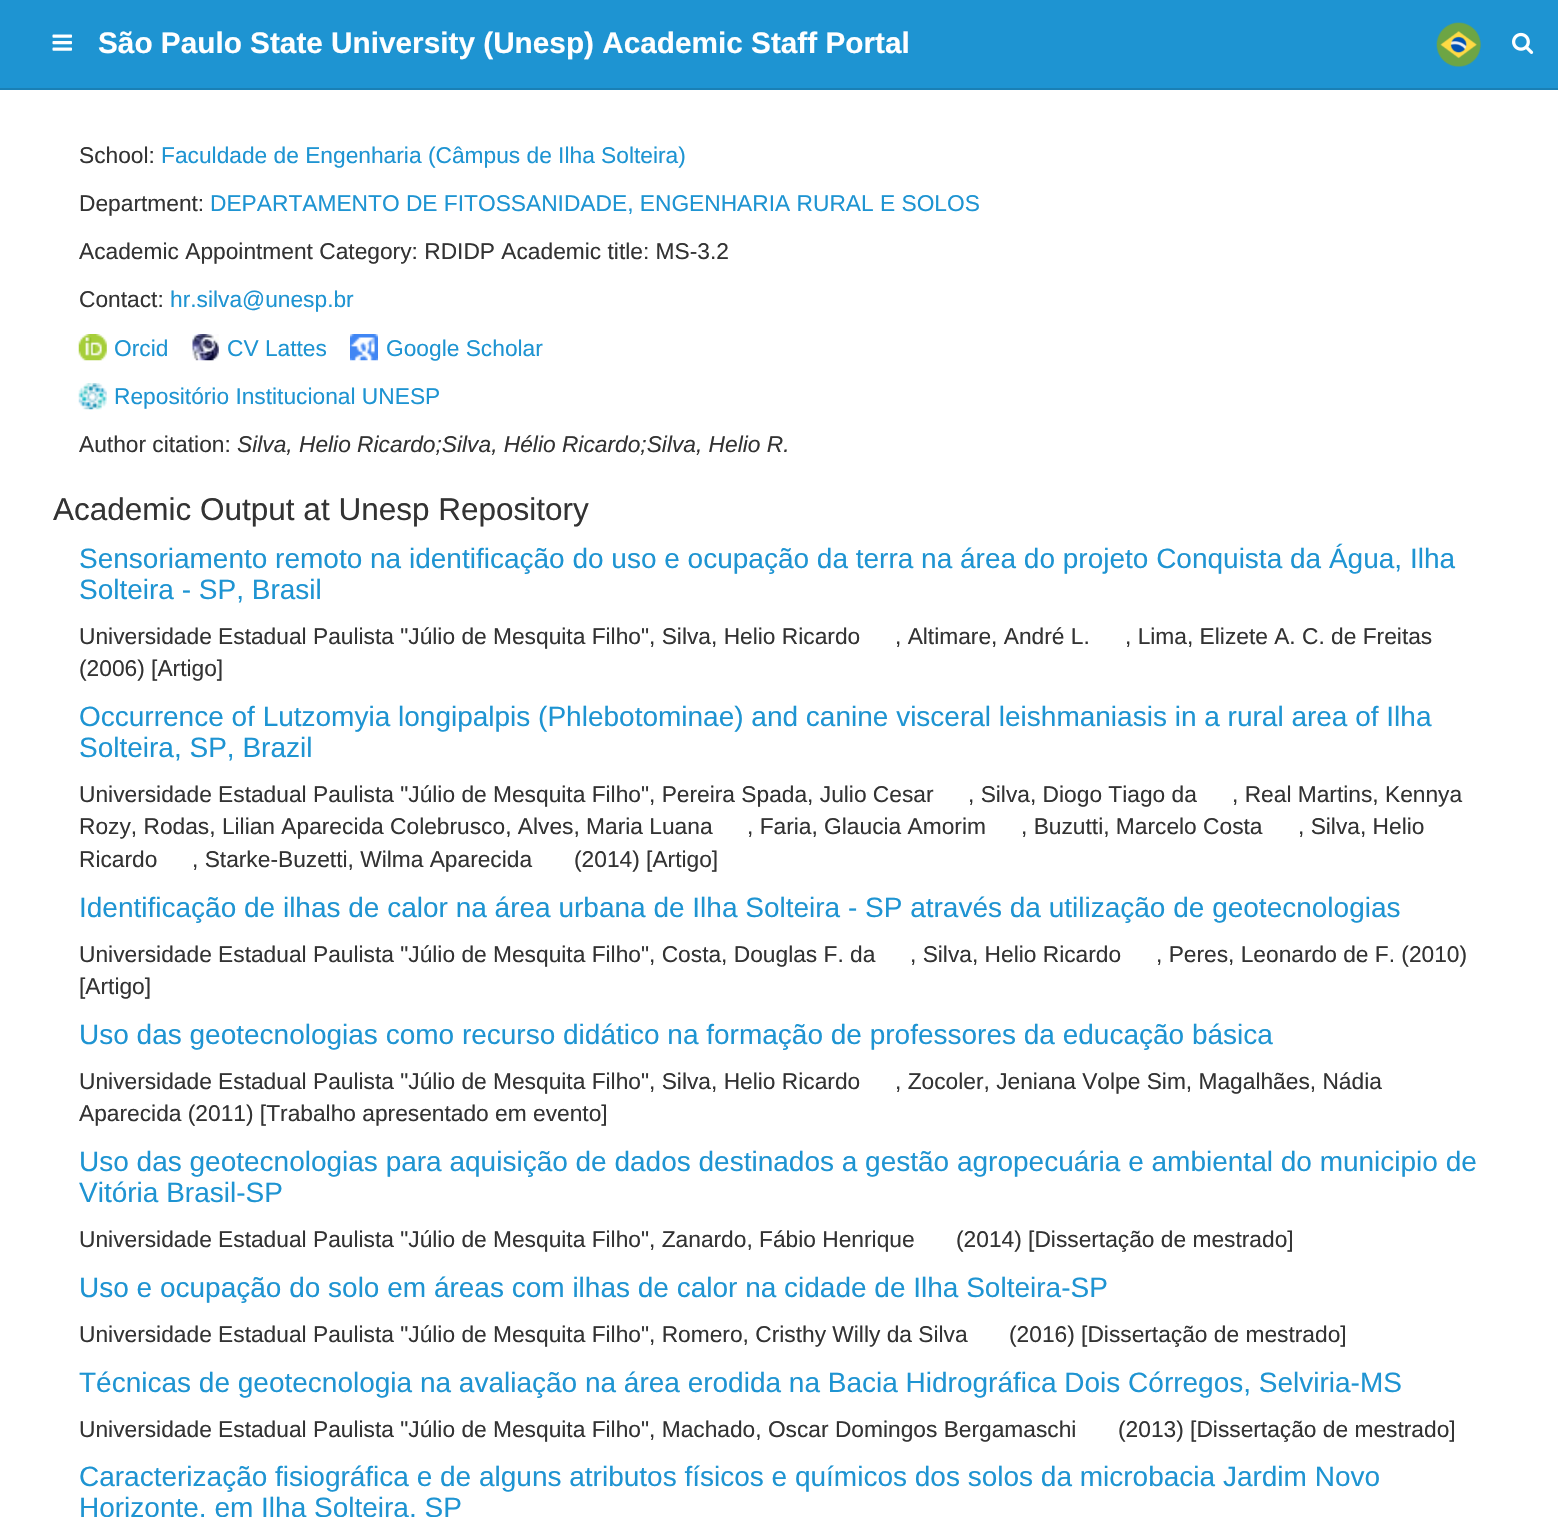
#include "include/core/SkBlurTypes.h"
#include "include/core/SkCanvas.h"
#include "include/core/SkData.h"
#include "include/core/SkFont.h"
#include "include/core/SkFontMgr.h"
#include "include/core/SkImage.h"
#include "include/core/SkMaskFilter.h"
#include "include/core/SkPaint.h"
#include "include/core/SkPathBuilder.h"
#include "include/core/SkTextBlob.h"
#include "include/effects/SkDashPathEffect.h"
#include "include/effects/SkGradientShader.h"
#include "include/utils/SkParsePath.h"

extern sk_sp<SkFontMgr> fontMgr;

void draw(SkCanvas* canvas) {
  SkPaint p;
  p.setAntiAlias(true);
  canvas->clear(SK_ColorWHITE);
  p.setColor(SkColorSetRGB(30, 148, 210));
  canvas->drawRect(SkRect::MakeLTRB(0, 0, 1558, 88), p);
  p.setColor(SkColorSetRGB(26, 128, 181));
  canvas->drawRect(SkRect::MakeLTRB(0, 88, 1558, 90), p);
  canvas->drawImageRect(SkImages::DeferredFromEncodedData(SkData::MakeFromFileName("images/1.png")), SkRect::MakeLTRB(52, 34, 72, 51), SkSamplingOptions());
  canvas->drawImageRect(SkImages::DeferredFromEncodedData(SkData::MakeFromFileName("images/2.png")), SkRect::MakeLTRB(1436, 22, 1481, 67), SkSamplingOptions());
  canvas->drawImageRect(SkImages::DeferredFromEncodedData(SkData::MakeFromFileName("images/3.png")), SkRect::MakeLTRB(1512, 32, 1534, 54), SkSamplingOptions());
  canvas->drawImageRect(SkImages::DeferredFromEncodedData(SkData::MakeFromFileName("images/4.png")), SkRect::MakeLTRB(78, 334, 107, 361), SkSamplingOptions());
  canvas->drawImageRect(SkImages::DeferredFromEncodedData(SkData::MakeFromFileName("images/5.png")), SkRect::MakeLTRB(192, 334, 219, 361), SkSamplingOptions());
  canvas->drawImageRect(SkImages::DeferredFromEncodedData(SkData::MakeFromFileName("images/6.png")), SkRect::MakeLTRB(350, 334, 378, 361), SkSamplingOptions());
  canvas->drawImageRect(SkImages::DeferredFromEncodedData(SkData::MakeFromFileName("images/7.png")), SkRect::MakeLTRB(78, 383, 107, 410), SkSamplingOptions());
  SkFont font1(fontMgr->matchFamilyStyle("Liberation Sans", SkFontStyle::Bold()), 29.75f);
  font1.setSubpixel(true);
  p.setColor(SK_ColorWHITE);
  canvas->drawString("São Paulo State University (Unesp) Academic Staff Portal", 98, 53, font1, p);
  SkFont font2(fontMgr->matchFamilyStyle("Liberation Sans", SkFontStyle::Normal()), 22.75f);
  font2.setSubpixel(true);
  p.setColor(SkColorSetRGB(51, 51, 51));
  canvas->drawString("School:", 79, 163, font2, p);
  p.setColor(SkColorSetRGB(30, 148, 210));
  canvas->drawString("Faculdade de Engenharia (Câmpus de Ilha Solteira)", 161, 163, font2, p);
  p.setColor(SkColorSetRGB(51, 51, 51));
  canvas->drawString("Department:", 79, 211, font2, p);
  p.setColor(SkColorSetRGB(30, 148, 210));
  canvas->drawString("DEPARTAMENTO DE FITOSSANIDADE, ENGENHARIA RURAL E SOLOS", 210, 211, font2, p);
  p.setColor(SkColorSetRGB(51, 51, 51));
  canvas->drawString("Academic Appointment Category: RDIDP Academic title: MS-3.2", 79, 259, font2, p);
  canvas->drawString("Contact:", 79, 307, font2, p);
  p.setColor(SkColorSetRGB(30, 148, 210));
  canvas->drawString("hr.silva@unesp.br", 170, 307, font2, p);
  canvas->drawString("Orcid", 114, 356, font2, p);
  canvas->drawString("CV Lattes", 227, 356, font2, p);
  canvas->drawString("Google Scholar", 386, 356, font2, p);
  canvas->drawString("Repositório Institucional UNESP", 114, 404, font2, p);
  p.setColor(SkColorSetRGB(51, 51, 51));
  canvas->drawString("Author citation:", 79, 452, font2, p);
  SkFont font3(fontMgr->matchFamilyStyle("Liberation Sans", SkFontStyle::Italic()), 22.75f);
  font3.setSubpixel(true);
  canvas->drawString("Silva, Helio Ricardo;Silva, Hélio Ricardo;Silva, Helio R.", 237, 452, font3, p);
  SkFont font4(fontMgr->matchFamilyStyle("Liberation Sans", SkFontStyle::Normal()), 31.5f);
  font4.setSubpixel(true);
  canvas->drawString("Academic Output at Unesp Repository", 53, 520, font4, p);
  SkFont font5(fontMgr->matchFamilyStyle("Liberation Sans", SkFontStyle::Normal()), 28);
  font5.setSubpixel(true);
  p.setColor(SkColorSetRGB(30, 148, 210));
  canvas->drawString("Sensoriamento remoto na identificação do uso e ocupação da terra na área do projeto Conquista da Água, Ilha", 79, 568, font5, p);
  canvas->drawString("Solteira - SP, Brasil", 79, 599, font5, p);
  p.setColor(SkColorSetRGB(51, 51, 51));
  canvas->drawString("Universidade Estadual Paulista \"Júlio de Mesquita Filho\", Silva, Helio Ricardo", 79, 644, font2, p);
  canvas->drawString(", Altimare, André L.", 895, 644, font2, p);
  canvas->drawString(", Lima, Elizete A. C. de Freitas", 1125, 644, font2, p);
  canvas->drawString("(2006) [Artigo]", 79, 676, font2, p);
  p.setColor(SkColorSetRGB(30, 148, 210));
  canvas->drawString("Occurrence of Lutzomyia longipalpis (Phlebotominae) and canine visceral leishmaniasis in a rural area of Ilha", 79, 726, font5, p);
  canvas->drawString("Solteira, SP, Brazil", 79, 757, font5, p);
  p.setColor(SkColorSetRGB(51, 51, 51));
  canvas->drawString("Universidade Estadual Paulista \"Júlio de Mesquita Filho\", Pereira Spada, Julio Cesar", 79, 802, font2, p);
  canvas->drawString(", Silva, Diogo Tiago da", 968, 802, font2, p);
  canvas->drawString(", Real Martins, Kennya", 1232, 802, font2, p);
  canvas->drawString("Rozy, Rodas, Lilian Aparecida Colebrusco, Alves, Maria Luana", 79, 834, font2, p);
  canvas->drawString(", Faria, Glaucia Amorim", 747, 834, font2, p);
  canvas->drawString(", Buzutti, Marcelo Costa", 1021, 834, font2, p);
  canvas->drawString(", Silva, Helio", 1298, 834, font2, p);
  canvas->drawString("Ricardo", 79, 867, font2, p);
  canvas->drawString(", Starke-Buzetti, Wilma Aparecida", 192, 867, font2, p);
  canvas->drawString("(2014) [Artigo]", 574, 867, font2, p);
  p.setColor(SkColorSetRGB(30, 148, 210));
  canvas->drawString("Identificação de ilhas de calor na área urbana de Ilha Solteira - SP através da utilização de geotecnologias", 79, 917, font5, p);
  p.setColor(SkColorSetRGB(51, 51, 51));
  canvas->drawString("Universidade Estadual Paulista \"Júlio de Mesquita Filho\", Costa, Douglas F. da", 79, 962, font2, p);
  canvas->drawString(", Silva, Helio Ricardo", 910, 962, font2, p);
  canvas->drawString(", Peres, Leonardo de F. (2010)", 1156, 962, font2, p);
  canvas->drawString("[Artigo]", 79, 994, font2, p);
  p.setColor(SkColorSetRGB(30, 148, 210));
  canvas->drawString("Uso das geotecnologias como recurso didático na formação de professores da educação básica", 79, 1044, font5, p);
  p.setColor(SkColorSetRGB(51, 51, 51));
  canvas->drawString("Universidade Estadual Paulista \"Júlio de Mesquita Filho\", Silva, Helio Ricardo", 79, 1089, font2, p);
  canvas->drawString(", Zocoler, Jeniana Volpe Sim, Magalhães, Nádia", 895, 1089, font2, p);
  canvas->drawString("Aparecida (2011) [Trabalho apresentado em evento]", 79, 1121, font2, p);
  p.setColor(SkColorSetRGB(30, 148, 210));
  canvas->drawString("Uso das geotecnologias para aquisição de dados destinados a gestão agropecuária e ambiental do municipio de", 79, 1171, font5, p);
  canvas->drawString("Vitória Brasil-SP", 79, 1202, font5, p);
  p.setColor(SkColorSetRGB(51, 51, 51));
  canvas->drawString("Universidade Estadual Paulista \"Júlio de Mesquita Filho\", Zanardo, Fábio Henrique", 79, 1247, font2, p);
  canvas->drawString("(2014) [Dissertação de mestrado]", 956, 1247, font2, p);
  p.setColor(SkColorSetRGB(30, 148, 210));
  canvas->drawString("Uso e ocupação do solo em áreas com ilhas de calor na cidade de Ilha Solteira-SP", 79, 1297, font5, p);
  p.setColor(SkColorSetRGB(51, 51, 51));
  canvas->drawString("Universidade Estadual Paulista \"Júlio de Mesquita Filho\", Romero, Cristhy Willy da Silva", 79, 1342, font2, p);
  canvas->drawString("(2016) [Dissertação de mestrado]", 1009, 1342, font2, p);
  p.setColor(SkColorSetRGB(30, 148, 210));
  canvas->drawString("Técnicas de geotecnologia na avaliação na área erodida na Bacia Hidrográfica Dois Córregos, Selviria-MS", 79, 1392, font5, p);
  p.setColor(SkColorSetRGB(51, 51, 51));
  canvas->drawString("Universidade Estadual Paulista \"Júlio de Mesquita Filho\", Machado, Oscar Domingos Bergamaschi", 79, 1437, font2, p);
  canvas->drawString("(2013) [Dissertação de mestrado]", 1118, 1437, font2, p);
  p.setColor(SkColorSetRGB(30, 148, 210));
  canvas->drawString("Caracterização fisiográfica e de alguns atributos físicos e químicos dos solos da microbacia Jardim Novo", 79, 1486, font5, p);
  canvas->drawString("Horizonte, em Ilha Solteira, SP", 79, 1517, font5, p);
}
